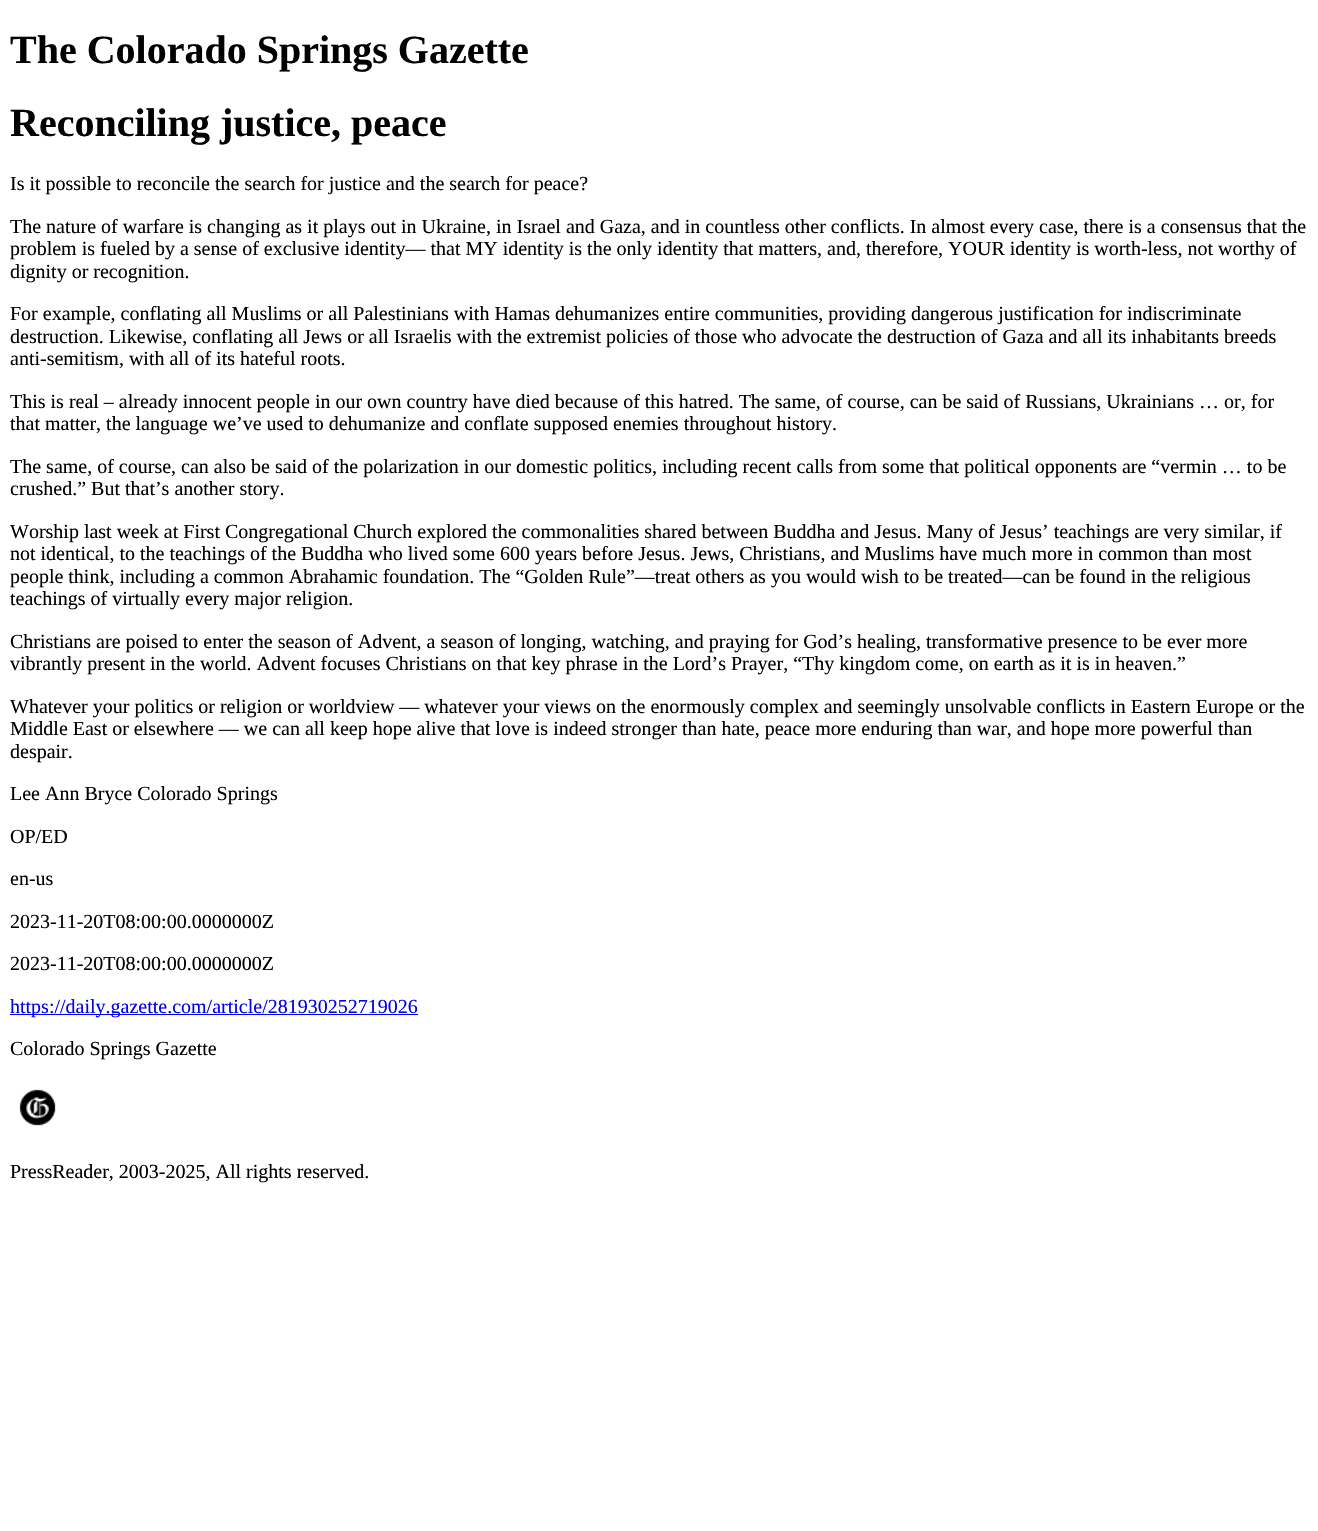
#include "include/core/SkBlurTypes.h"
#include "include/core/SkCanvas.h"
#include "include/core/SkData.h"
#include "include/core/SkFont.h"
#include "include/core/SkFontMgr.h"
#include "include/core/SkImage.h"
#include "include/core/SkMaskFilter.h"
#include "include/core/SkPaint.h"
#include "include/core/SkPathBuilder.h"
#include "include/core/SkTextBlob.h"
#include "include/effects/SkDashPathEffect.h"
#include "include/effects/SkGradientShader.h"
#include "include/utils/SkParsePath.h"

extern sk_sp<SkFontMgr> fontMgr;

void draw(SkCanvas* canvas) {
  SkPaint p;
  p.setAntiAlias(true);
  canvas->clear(SK_ColorWHITE);
  p.setColor(SkColorSetRGB(0, 0, 238));
  canvas->drawRect(SkRect::MakeLTRB(10, 1014, 418, 1015), p);
  canvas->drawImageRect(SkImages::DeferredFromEncodedData(SkData::MakeFromFileName("images/1.png")), SkRect::MakeLTRB(19, 1089, 56, 1126), SkSamplingOptions());
  SkFont font1(fontMgr->matchFamilyStyle("Liberation Serif", SkFontStyle::Bold()), 40);
  font1.setSubpixel(true);
  p.setColor(SK_ColorBLACK);
  canvas->drawString("The Colorado Springs Gazette", 10, 63, font1, p);
  canvas->drawString("Reconciling justice, peace", 10, 136, font1, p);
  SkFont font2(fontMgr->matchFamilyStyle("Liberation Serif", SkFontStyle::Normal()), 20);
  font2.setSubpixel(true);
  canvas->drawString("Is it possible to reconcile the search for justice and the search for peace?", 10, 190, font2, p);
  canvas->drawString("The nature of warfare is changing as it plays out in Ukraine, in Israel and Gaza, and in countless other conflicts. In almost every case, there is a consensus that the", 10, 233, font2, p);
  canvas->drawString("problem is fueled by a sense of exclusive identity— that MY identity is the only identity that matters, and, therefore, YOUR identity is worth-less, not worthy of", 10, 255, font2, p);
  canvas->drawString("dignity or recognition.", 10, 278, font2, p);
  canvas->drawString("For example, conflating all Muslims or all Palestinians with Hamas dehumanizes entire communities, providing dangerous justification for indiscriminate", 10, 320, font2, p);
  canvas->drawString("destruction. Likewise, conflating all Jews or all Israelis with the extremist policies of those who advocate the destruction of Gaza and all its inhabitants breeds", 10, 343, font2, p);
  canvas->drawString("anti-semitism, with all of its hateful roots.", 10, 365, font2, p);
  canvas->drawString("This is real – already innocent people in our own country have died because of this hatred. The same, of course, can be said of Russians, Ukrainians … or, for", 10, 408, font2, p);
  canvas->drawString("that matter, the language we’ve used to dehumanize and conflate supposed enemies throughout history.", 10, 430, font2, p);
  canvas->drawString("The same, of course, can also be said of the polarization in our domestic politics, including recent calls from some that political opponents are “vermin … to be", 10, 473, font2, p);
  canvas->drawString("crushed.” But that’s another story.", 10, 495, font2, p);
  canvas->drawString("Worship last week at First Congregational Church explored the commonalities shared between Buddha and Jesus. Many of Jesus’ teachings are very similar, if", 10, 538, font2, p);
  canvas->drawString("not identical, to the teachings of the Buddha who lived some 600 years before Jesus. Jews, Christians, and Muslims have much more in common than most", 10, 560, font2, p);
  canvas->drawString("people think, including a common Abrahamic foundation. The “Golden Rule”—treat others as you would wish to be treated—can be found in the religious", 10, 583, font2, p);
  canvas->drawString("teachings of virtually every major religion.", 10, 605, font2, p);
  canvas->drawString("Christians are poised to enter the season of Advent, a season of longing, watching, and praying for God’s healing, transformative presence to be ever more", 10, 648, font2, p);
  canvas->drawString("vibrantly present in the world. Advent focuses Christians on that key phrase in the Lord’s Prayer, “Thy kingdom come, on earth as it is in heaven.”", 10, 670, font2, p);
  canvas->drawString("Whatever your politics or religion or worldview — whatever your views on the enormously complex and seemingly unsolvable conflicts in Eastern Europe or the", 10, 713, font2, p);
  canvas->drawString("Middle East or elsewhere — we can all keep hope alive that love is indeed stronger than hate, peace more enduring than war, and hope more powerful than", 10, 735, font2, p);
  canvas->drawString("despair.", 10, 758, font2, p);
  canvas->drawString("Lee Ann Bryce Colorado Springs", 10, 800, font2, p);
  canvas->drawString("OP/ED", 10, 843, font2, p);
  canvas->drawString("en-us", 10, 885, font2, p);
  canvas->drawString("2023-11-20T08:00:00.0000000Z", 10, 928, font2, p);
  canvas->drawString("2023-11-20T08:00:00.0000000Z", 10, 970, font2, p);
  p.setColor(SkColorSetRGB(0, 0, 238));
  canvas->drawString("https://daily.gazette.com/article/281930252719026", 10, 1013, font2, p);
  p.setColor(SK_ColorBLACK);
  canvas->drawString("Colorado Springs Gazette", 10, 1055, font2, p);
  canvas->drawString("PressReader, 2003-2025, All rights reserved.", 10, 1178, font2, p);
}
